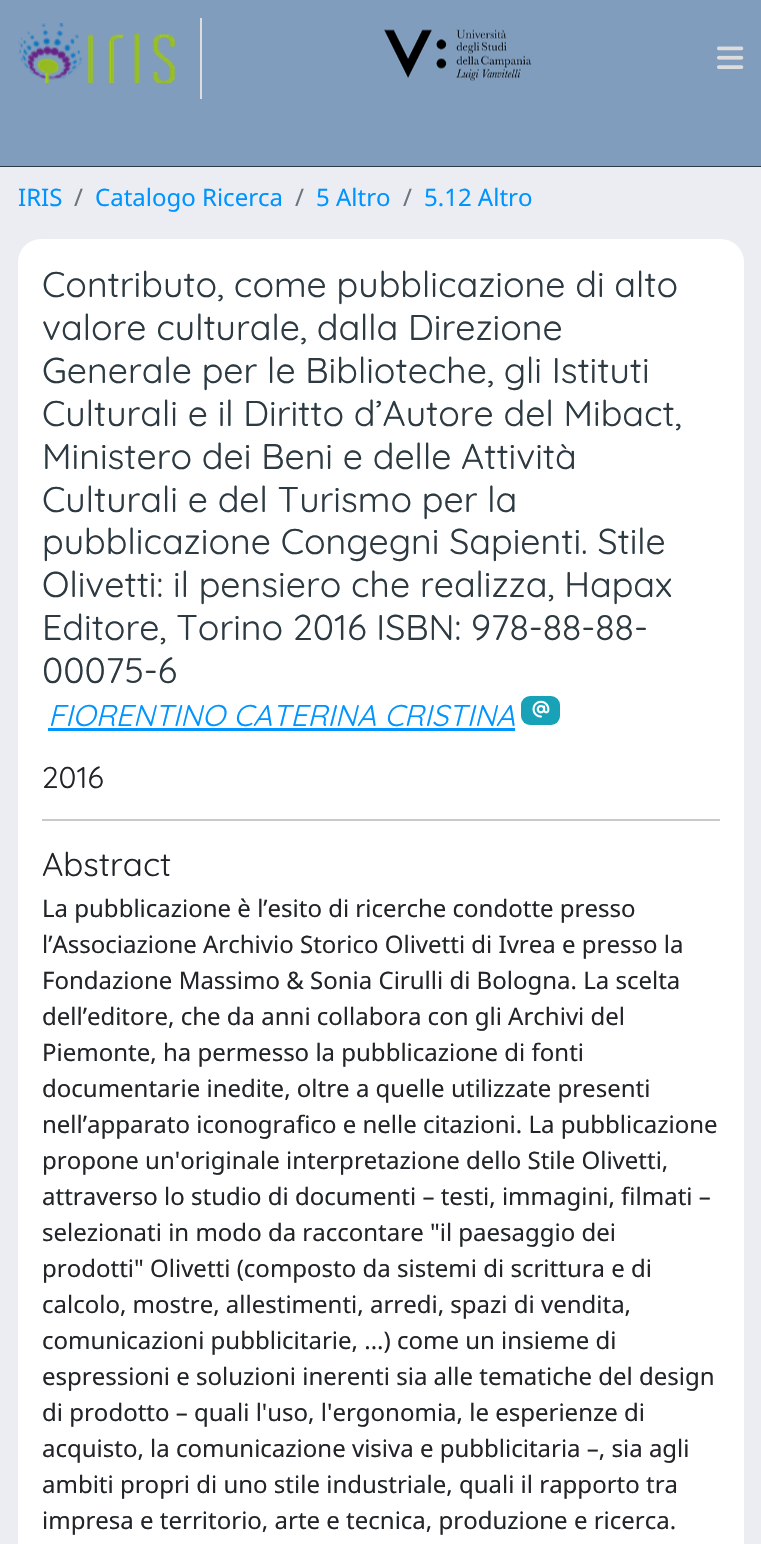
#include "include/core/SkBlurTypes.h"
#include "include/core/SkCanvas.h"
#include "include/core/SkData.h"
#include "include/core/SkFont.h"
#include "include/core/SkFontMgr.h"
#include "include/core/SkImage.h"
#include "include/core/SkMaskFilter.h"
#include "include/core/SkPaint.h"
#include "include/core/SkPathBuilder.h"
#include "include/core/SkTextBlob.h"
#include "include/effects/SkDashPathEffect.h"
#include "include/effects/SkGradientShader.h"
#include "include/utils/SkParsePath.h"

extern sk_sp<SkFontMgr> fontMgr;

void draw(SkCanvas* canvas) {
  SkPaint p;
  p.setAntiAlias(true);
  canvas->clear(SkColorSetRGB(236, 237, 242));
  p.setColor(SkColorSetRGB(45, 58, 66));
  canvas->drawRect(SkRect::MakeLTRB(0, 166, 761, 167), p);
  p.setColor(SkColorSetRGB(128, 157, 189));
  canvas->drawRect(SkRect::MakeLTRB(0, 0, 761, 166), p);
  p.setColor(SkColorSetRGB(221, 221, 221));
  canvas->drawRect(SkRect::MakeLTRB(200, 18, 202, 99), p);
  canvas->drawImageRect(SkImages::DeferredFromEncodedData(SkData::MakeFromFileName("images/1.png")), SkRect::MakeLTRB(18, 23, 176, 83), SkSamplingOptions());
  canvas->drawImageRect(SkImages::DeferredFromEncodedData(SkData::MakeFromFileName("images/2.png")), SkRect::MakeLTRB(384, 28, 532, 81), SkSamplingOptions());
  canvas->drawImageRect(SkImages::DeferredFromEncodedData(SkData::MakeFromFileName("images/3.png")), SkRect::MakeLTRB(717, 46, 744, 69), SkSamplingOptions());
  p.setColor(SK_ColorWHITE);
  canvas->drawRoundRect(SkRect::MakeLTRB(18, 239, 744, 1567), 23, 23, p);
  p.setColor(SkColorSetRGB(0, 148, 255));
  canvas->drawRect(SkRect::MakeLTRB(48, 728, 515, 731), p);
  p.setColor(SkColorSetRGB(23, 162, 184));
  canvas->drawRoundRect(SkRect::MakeLTRB(521, 696, 560, 725), 9, 9, p);
  canvas->drawImageRect(SkImages::DeferredFromEncodedData(SkData::MakeFromFileName("images/4.png")), SkRect::MakeLTRB(532, 700, 550, 718), SkSamplingOptions());
  p.setColor(SkColorSetRGB(200, 201, 202));
  canvas->drawRect(SkRect::MakeLTRB(42, 819, 720, 821), p);
  SkFont font1(fontMgr->matchFamilyStyle("Noto Sans", SkFontStyle::Normal()), 24);
  font1.setSubpixel(true);
  p.setColor(SkColorSetRGB(0, 148, 255));
  canvas->drawString("IRIS", 18, 206, font1, p);
  p.setColor(SkColorSetRGB(108, 117, 125));
  canvas->drawString("/", 74, 206, font1, p);
  p.setColor(SkColorSetRGB(0, 148, 255));
  canvas->drawString("Catalogo Ricerca", 95, 206, font1, p);
  p.setColor(SkColorSetRGB(108, 117, 125));
  canvas->drawString("/", 295, 206, font1, p);
  p.setColor(SkColorSetRGB(0, 148, 255));
  canvas->drawString("5 Altro", 316, 206, font1, p);
  p.setColor(SkColorSetRGB(108, 117, 125));
  canvas->drawString("/", 403, 206, font1, p);
  p.setColor(SkColorSetRGB(0, 148, 255));
  canvas->drawString("5.12 Altro", 424, 206, font1, p);
  SkFont font2(fontMgr->matchFamilyStyle("Quicksand", SkFontStyle::Normal()), 35.75f);
  font2.setSubpixel(true);
  p.setColor(SkColorSetRGB(45, 58, 66));
  canvas->drawString("Contributo, come pubblicazione di alto", 42, 297, font2, p);
  canvas->drawString("valore culturale, dalla Direzione", 42, 340, font2, p);
  canvas->drawString("Generale per le Biblioteche, gli Istituti", 42, 383, font2, p);
  canvas->drawString("Culturali e il Diritto d’Autore del Mibact,", 42, 426, font2, p);
  canvas->drawString("Ministero dei Beni e delle Attività", 42, 469, font2, p);
  canvas->drawString("Culturali e del Turismo per la", 42, 512, font2, p);
  canvas->drawString("pubblicazione Congegni Sapienti. Stile", 42, 554, font2, p);
  canvas->drawString("Olivetti: il pensiero che realizza, Hapax", 42, 597, font2, p);
  canvas->drawString("Editore, Torino 2016 ISBN: 978-88-88-", 42, 640, font2, p);
  canvas->drawString("00075-6", 42, 683, font2, p);
  SkFont font3(fontMgr->matchFamilyStyle("Quicksand", SkFontStyle::Italic()), 30);
  font3.setSubpixel(true);
  p.setColor(SkColorSetRGB(0, 148, 255));
  canvas->drawString("FIORENTINO CATERINA CRISTINA", 48, 726, font3, p);
  SkFont font4(fontMgr->matchFamilyStyle("Quicksand", SkFontStyle::Normal()), 30);
  font4.setSubpixel(true);
  p.setColor(SkColorSetRGB(33, 37, 41));
  canvas->drawString("2016", 42, 788, font4, p);
  SkFont font5(fontMgr->matchFamilyStyle("Quicksand", SkFontStyle::Normal()), 33);
  font5.setSubpixel(true);
  canvas->drawString("Abstract", 42, 876, font5, p);
  canvas->drawString("La pubblicazione è l’esito di ricerche condotte presso", 42, 917, font1, p);
  canvas->drawString("l’Associazione Archivio Storico Olivetti di Ivrea e presso la", 42, 953, font1, p);
  canvas->drawString("Fondazione Massimo & Sonia Cirulli di Bologna. La scelta", 42, 989, font1, p);
  canvas->drawString("dell’editore, che da anni collabora con gli Archivi del", 42, 1025, font1, p);
  canvas->drawString("Piemonte, ha permesso la pubblicazione di fonti", 42, 1061, font1, p);
  canvas->drawString("documentarie inedite, oltre a quelle utilizzate presenti", 42, 1097, font1, p);
  canvas->drawString("nell’apparato iconografico e nelle citazioni. La pubblicazione", 42, 1133, font1, p);
  canvas->drawString("propone un'originale interpretazione dello Stile Olivetti,", 42, 1169, font1, p);
  canvas->drawString("attraverso lo studio di documenti – testi, immagini, filmati –", 42, 1205, font1, p);
  canvas->drawString("selezionati in modo da raccontare \"il paesaggio dei", 42, 1241, font1, p);
  canvas->drawString("prodotti\" Olivetti (composto da sistemi di scrittura e di", 42, 1277, font1, p);
  canvas->drawString("calcolo, mostre, allestimenti, arredi, spazi di vendita,", 42, 1313, font1, p);
  canvas->drawString("comunicazioni pubblicitarie, ...) come un insieme di", 42, 1349, font1, p);
  canvas->drawString("espressioni e soluzioni inerenti sia alle tematiche del design", 42, 1385, font1, p);
  canvas->drawString("di prodotto – quali l'uso, l'ergonomia, le esperienze di", 42, 1421, font1, p);
  canvas->drawString("acquisto, la comunicazione visiva e pubblicitaria –, sia agli", 42, 1457, font1, p);
  canvas->drawString("ambiti propri di uno stile industriale, quali il rapporto tra", 42, 1493, font1, p);
  canvas->drawString("impresa e territorio, arte e tecnica, produzione e ricerca.", 42, 1529, font1, p);
}
